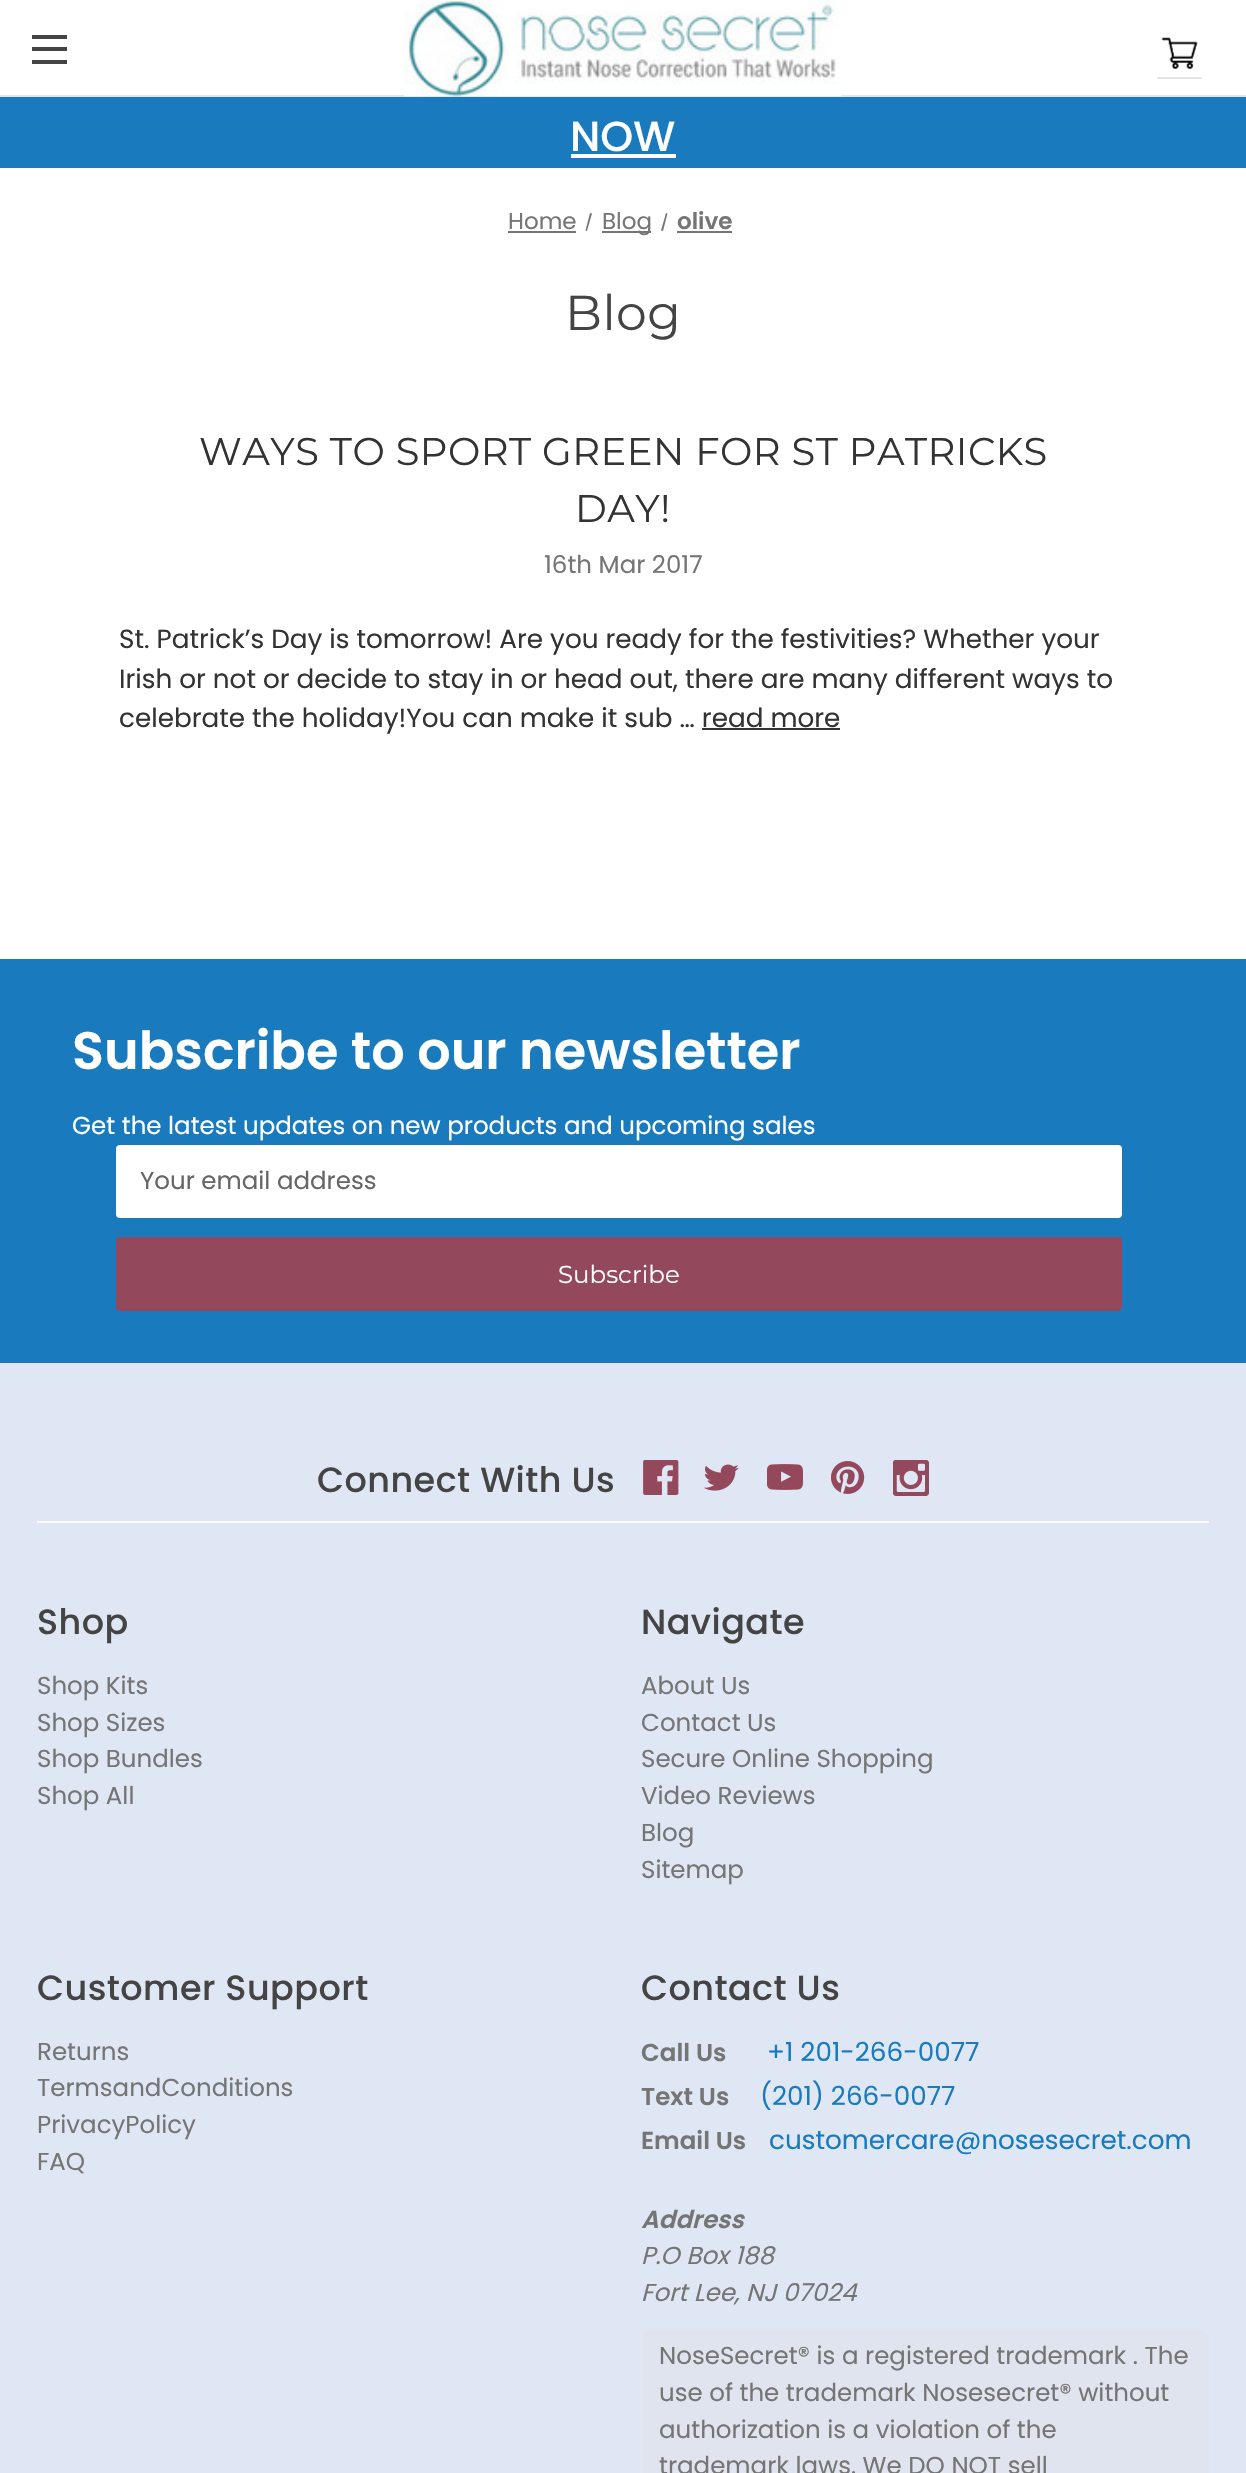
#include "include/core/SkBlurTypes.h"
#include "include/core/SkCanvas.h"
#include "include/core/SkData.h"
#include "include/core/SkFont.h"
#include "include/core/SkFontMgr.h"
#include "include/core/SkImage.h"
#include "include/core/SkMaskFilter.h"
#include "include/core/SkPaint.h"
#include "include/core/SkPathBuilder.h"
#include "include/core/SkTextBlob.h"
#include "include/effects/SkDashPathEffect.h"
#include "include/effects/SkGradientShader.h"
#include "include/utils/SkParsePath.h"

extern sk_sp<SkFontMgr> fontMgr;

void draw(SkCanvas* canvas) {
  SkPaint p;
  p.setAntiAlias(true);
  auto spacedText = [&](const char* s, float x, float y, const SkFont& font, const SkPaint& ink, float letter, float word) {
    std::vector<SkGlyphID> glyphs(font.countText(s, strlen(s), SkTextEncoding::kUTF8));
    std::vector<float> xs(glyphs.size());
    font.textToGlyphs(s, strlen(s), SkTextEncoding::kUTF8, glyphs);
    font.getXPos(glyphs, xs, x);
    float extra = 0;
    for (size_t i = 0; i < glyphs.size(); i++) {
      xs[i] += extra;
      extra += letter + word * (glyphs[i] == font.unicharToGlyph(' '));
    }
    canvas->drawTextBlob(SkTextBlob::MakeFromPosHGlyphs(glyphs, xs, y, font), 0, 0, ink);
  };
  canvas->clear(SK_ColorWHITE);
  p.setColor(SkColorSetRGB(229, 229, 229));
  canvas->drawRect(SkRect::MakeLTRB(0, 95, 1246, 97), p);
  p.setColor(SkColorSetRGB(68, 68, 68));
  canvas->drawRect(SkRect::MakeLTRB(32, 47, 67, 51), p);
  canvas->drawRect(SkRect::MakeLTRB(32, 35, 67, 39), p);
  canvas->drawRect(SkRect::MakeLTRB(32, 60, 67, 64), p);
  canvas->drawImageRect(SkImages::DeferredFromEncodedData(SkData::MakeFromFileName("images/1.png")), SkRect::MakeLTRB(404, 0, 842, 97), SkSamplingOptions());
  canvas->drawImageRect(SkImages::DeferredFromEncodedData(SkData::MakeFromFileName("images/2.png")), SkRect::MakeLTRB(1161, 37, 1198, 69), SkSamplingOptions());
  p.setColor(SkColorSetRGB(229, 229, 229));
  canvas->drawRect(SkRect::MakeLTRB(1157, 77, 1202, 79), p);
  p.setColor(SkColorSetRGB(25, 123, 189));
  canvas->drawRect(SkRect::MakeLTRB(0, 97, 1246, 168), p);
  p.setColor(SK_ColorWHITE);
  canvas->drawRect(SkRect::MakeLTRB(571, 154, 676, 158), p);
  p.setColor(SkColorSetRGB(117, 117, 117));
  canvas->drawRect(SkRect::MakeLTRB(508, 231, 576, 233), p);
  canvas->drawPath(SkPathBuilder().moveTo(590, 213).lineTo(592, 213.5f).lineTo(587, 231).lineTo(585.5f, 230.5f).close().detach(), p);
  canvas->drawRect(SkRect::MakeLTRB(602, 231, 651, 233), p);
  canvas->drawPath(SkPathBuilder().moveTo(666, 213).lineTo(667.5f, 213.5f).lineTo(663, 231).lineTo(661, 230.5f).close().detach(), p);
  canvas->drawRect(SkRect::MakeLTRB(677, 231, 732, 233), p);
  p.setColor(SkColorSetRGB(51, 51, 51));
  canvas->drawRect(SkRect::MakeLTRB(702, 728, 840, 730), p);
  p.setColor(SkColorSetRGB(25, 123, 189));
  canvas->drawRect(SkRect::MakeLTRB(0, 959, 1246, 1363), p);
  p.setColor(SK_ColorWHITE);
  canvas->drawRoundRect(SkRect::MakeLTRB(116, 1145, 1122, 1218), 4, 4, p);
  p.setColor(SkColorSetRGB(147, 72, 91));
  canvas->drawRoundRect(SkRect::MakeLTRB(117, 1238, 1121, 1310), 3, 3, p);
  p.setStyle(SkPaint::kStroke_Style);
  p.setStrokeWidth(2);
  canvas->drawRoundRect(SkRect::MakeLTRB(117, 1238, 1121, 1310), 3, 3, p);
  p.setStyle(SkPaint::kFill_Style);
  p.setColor(SkColorSetRGB(223, 230, 244));
  canvas->drawRect(SkRect::MakeLTRB(0, 1365, 1246, 2473), p);
  p.setColor(SkColorSetRGB(229, 229, 229));
  canvas->drawRect(SkRect::MakeLTRB(0, 1363, 1246, 1365), p);
  p.setColor(SkColorSetRGB(250, 250, 250));
  canvas->drawRect(SkRect::MakeLTRB(37, 1521, 1209, 1523), p);
  canvas->drawImageRect(SkImages::DeferredFromEncodedData(SkData::MakeFromFileName("images/3.png")), SkRect::MakeLTRB(643, 1460, 679, 1495), SkSamplingOptions());
  canvas->drawImageRect(SkImages::DeferredFromEncodedData(SkData::MakeFromFileName("images/4.png")), SkRect::MakeLTRB(704, 1464, 739, 1491), SkSamplingOptions());
  canvas->drawImageRect(SkImages::DeferredFromEncodedData(SkData::MakeFromFileName("images/5.png")), SkRect::MakeLTRB(767, 1464, 803, 1490), SkSamplingOptions());
  canvas->drawImageRect(SkImages::DeferredFromEncodedData(SkData::MakeFromFileName("images/6.png")), SkRect::MakeLTRB(831, 1461, 865, 1494), SkSamplingOptions());
  canvas->drawImageRect(SkImages::DeferredFromEncodedData(SkData::MakeFromFileName("images/7.png")), SkRect::MakeLTRB(893, 1460, 929, 1496), SkSamplingOptions());
  p.setColor(SkColorSetRGB(223, 228, 239));
  canvas->drawRoundRect(SkRect::MakeLTRB(642, 2329, 1209, 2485), 12, 12, p);
  SkFont font1(fontMgr->matchFamilyStyle("Poppins", SkFontStyle(500, SkFontStyle::kNormal_Width, SkFontStyle::kUpright_Slant)), 42);
  font1.setSubpixel(true);
  p.setColor(SK_ColorWHITE);
  canvas->drawString("NOW", 570, 151, font1, p);
  SkFont font2(fontMgr->matchFamilyStyle("Poppins", SkFontStyle::Normal()), 23);
  font2.setSubpixel(true);
  p.setColor(SkColorSetRGB(117, 117, 117));
  canvas->drawString("Home", 508, 229, font2, p);
  canvas->drawString("Blog", 602, 229, font2, p);
  SkFont font3(fontMgr->matchFamilyStyle("Poppins", SkFontStyle(600, SkFontStyle::kNormal_Width, SkFontStyle::kUpright_Slant)), 23);
  font3.setSubpixel(true);
  canvas->drawString("olive", 677, 229, font3, p);
  SkFont font4(fontMgr->matchFamilyStyle("Montserrat", SkFontStyle::Normal()), 49);
  font4.setSubpixel(true);
  p.setColor(SkColorSetRGB(68, 68, 68));
  spacedText("Blog", 565, 330, font4, p, 0.45f, 0);
  SkFont font5(fontMgr->matchFamilyStyle("Montserrat", SkFontStyle::Normal()), 38.5f);
  font5.setSubpixel(true);
  p.setColor(SkColorSetRGB(51, 51, 51));
  spacedText("WAYS TO SPORT GREEN FOR ST PATRICKS", 199, 465, font5, p, 0.45f, 0);
  spacedText("DAY!", 575, 522, font5, p, 0.45f, 0);
  SkFont font6(fontMgr->matchFamilyStyle("Poppins", SkFontStyle::Normal()), 24.5f);
  font6.setSubpixel(true);
  p.setColor(SkColorSetRGB(117, 117, 117));
  canvas->drawString("16th Mar 2017", 544, 573, font6, p);
  SkFont font7(fontMgr->matchFamilyStyle("Poppins", SkFontStyle::Normal()), 26.25f);
  font7.setSubpixel(true);
  p.setColor(SkColorSetRGB(51, 51, 51));
  canvas->drawString("St. Patrick’s Day is tomorrow! Are you ready for the festivities? Whether your", 119, 648, font7, p);
  canvas->drawString("Irish or not or decide to stay in or head out, there are many different ways to", 119, 688, font7, p);
  canvas->drawString("celebrate the holiday!You can make it sub … read more", 119, 727, font7, p);
  SkFont font8(fontMgr->matchFamilyStyle("Poppins", SkFontStyle(600, SkFontStyle::kNormal_Width, SkFontStyle::kUpright_Slant)), 52.5f);
  font8.setSubpixel(true);
  p.setColor(SK_ColorWHITE);
  canvas->drawString("Subscribe to our newsletter", 72, 1069, font8, p);
  canvas->drawString("Get the latest updates on new products and upcoming sales", 72, 1134, font6, p);
  p.setColor(SkColorSetRGB(102, 102, 102));
  canvas->drawString("Your email address", 140, 1189, font6, p);
  SkFont font9(fontMgr->matchFamilyStyle("Montserrat", SkFontStyle::Normal()), 24.5f);
  font9.setSubpixel(true);
  p.setColor(SK_ColorWHITE);
  canvas->drawString("Subscribe", 558, 1283, font9, p);
  SkFont font10(fontMgr->matchFamilyStyle("Poppins", SkFontStyle(500, SkFontStyle::kNormal_Width, SkFontStyle::kUpright_Slant)), 35);
  font10.setSubpixel(true);
  p.setColor(SkColorSetRGB(68, 68, 68));
  spacedText("Connect With Us", 317, 1492, font10, p, 0.45f, 0);
  spacedText("Shop", 37, 1634, font10, p, 0.45f, 0);
  p.setColor(SkColorSetRGB(117, 117, 117));
  canvas->drawString("Shop Kits", 37, 1694, font6, p);
  canvas->drawString("Shop Sizes", 37, 1731, font6, p);
  canvas->drawString("Shop Bundles", 37, 1767, font6, p);
  canvas->drawString("Shop All", 37, 1804, font6, p);
  p.setColor(SkColorSetRGB(68, 68, 68));
  spacedText("Navigate", 641, 1634, font10, p, 0.45f, 0);
  p.setColor(SkColorSetRGB(117, 117, 117));
  canvas->drawString("About Us", 641, 1694, font6, p);
  canvas->drawString("Contact Us", 641, 1731, font6, p);
  canvas->drawString("Secure Online Shopping", 641, 1767, font6, p);
  canvas->drawString("Video Reviews", 641, 1804, font6, p);
  canvas->drawString("Blog", 641, 1841, font6, p);
  canvas->drawString("Sitemap", 641, 1878, font6, p);
  p.setColor(SkColorSetRGB(68, 68, 68));
  spacedText("Customer Support", 37, 2000, font10, p, 0.45f, 0);
  p.setColor(SkColorSetRGB(117, 117, 117));
  canvas->drawString("Returns", 37, 2060, font6, p);
  canvas->drawString("TermsandConditions", 37, 2096, font6, p);
  canvas->drawString("PrivacyPolicy", 37, 2133, font6, p);
  canvas->drawString("FAQ", 37, 2170, font6, p);
  p.setColor(SkColorSetRGB(68, 68, 68));
  spacedText("Contact Us", 641, 2000, font10, p, 0.45f, 0);
  SkFont font11(fontMgr->matchFamilyStyle("Poppins", SkFontStyle(600, SkFontStyle::kNormal_Width, SkFontStyle::kUpright_Slant)), 24.5f);
  font11.setSubpixel(true);
  p.setColor(SkColorSetRGB(117, 117, 117));
  canvas->drawString("Call Us", 641, 2061, font11, p);
  p.setColor(SkColorSetRGB(25, 123, 189));
  canvas->drawString("+1 201-266-0077", 767, 2061, font7, p);
  p.setColor(SkColorSetRGB(117, 117, 117));
  canvas->drawString("Text Us", 641, 2105, font11, p);
  p.setColor(SkColorSetRGB(25, 123, 189));
  canvas->drawString("(201) 266-0077", 760, 2105, font7, p);
  p.setColor(SkColorSetRGB(117, 117, 117));
  canvas->drawString("Email Us", 641, 2149, font11, p);
  p.setColor(SkColorSetRGB(25, 123, 189));
  canvas->drawString("customercare@nosesecret.com", 769, 2149, font7, p);
  SkFont font12(fontMgr->matchFamilyStyle("Poppins", SkFontStyle(600, SkFontStyle::kNormal_Width, SkFontStyle::kItalic_Slant)), 24.5f);
  font12.setSubpixel(true);
  p.setColor(SkColorSetRGB(117, 117, 117));
  canvas->drawString("Address", 641, 2228, font12, p);
  SkFont font13(fontMgr->matchFamilyStyle("Poppins", SkFontStyle::Italic()), 24.5f);
  font13.setSubpixel(true);
  canvas->drawString("P.O Box 188", 641, 2264, font13, p);
  canvas->drawString("Fort Lee, NJ 07024", 641, 2301, font13, p);
  canvas->drawString("NoseSecret® is a registered trademark . The", 659, 2364, font6, p);
  canvas->drawString("use of the trademark Nosesecret® without", 659, 2401, font6, p);
  canvas->drawString("authorization is a violation of the", 659, 2438, font6, p);
  canvas->drawString("trademark laws. We DO NOT sell", 659, 2474, font6, p);
}
